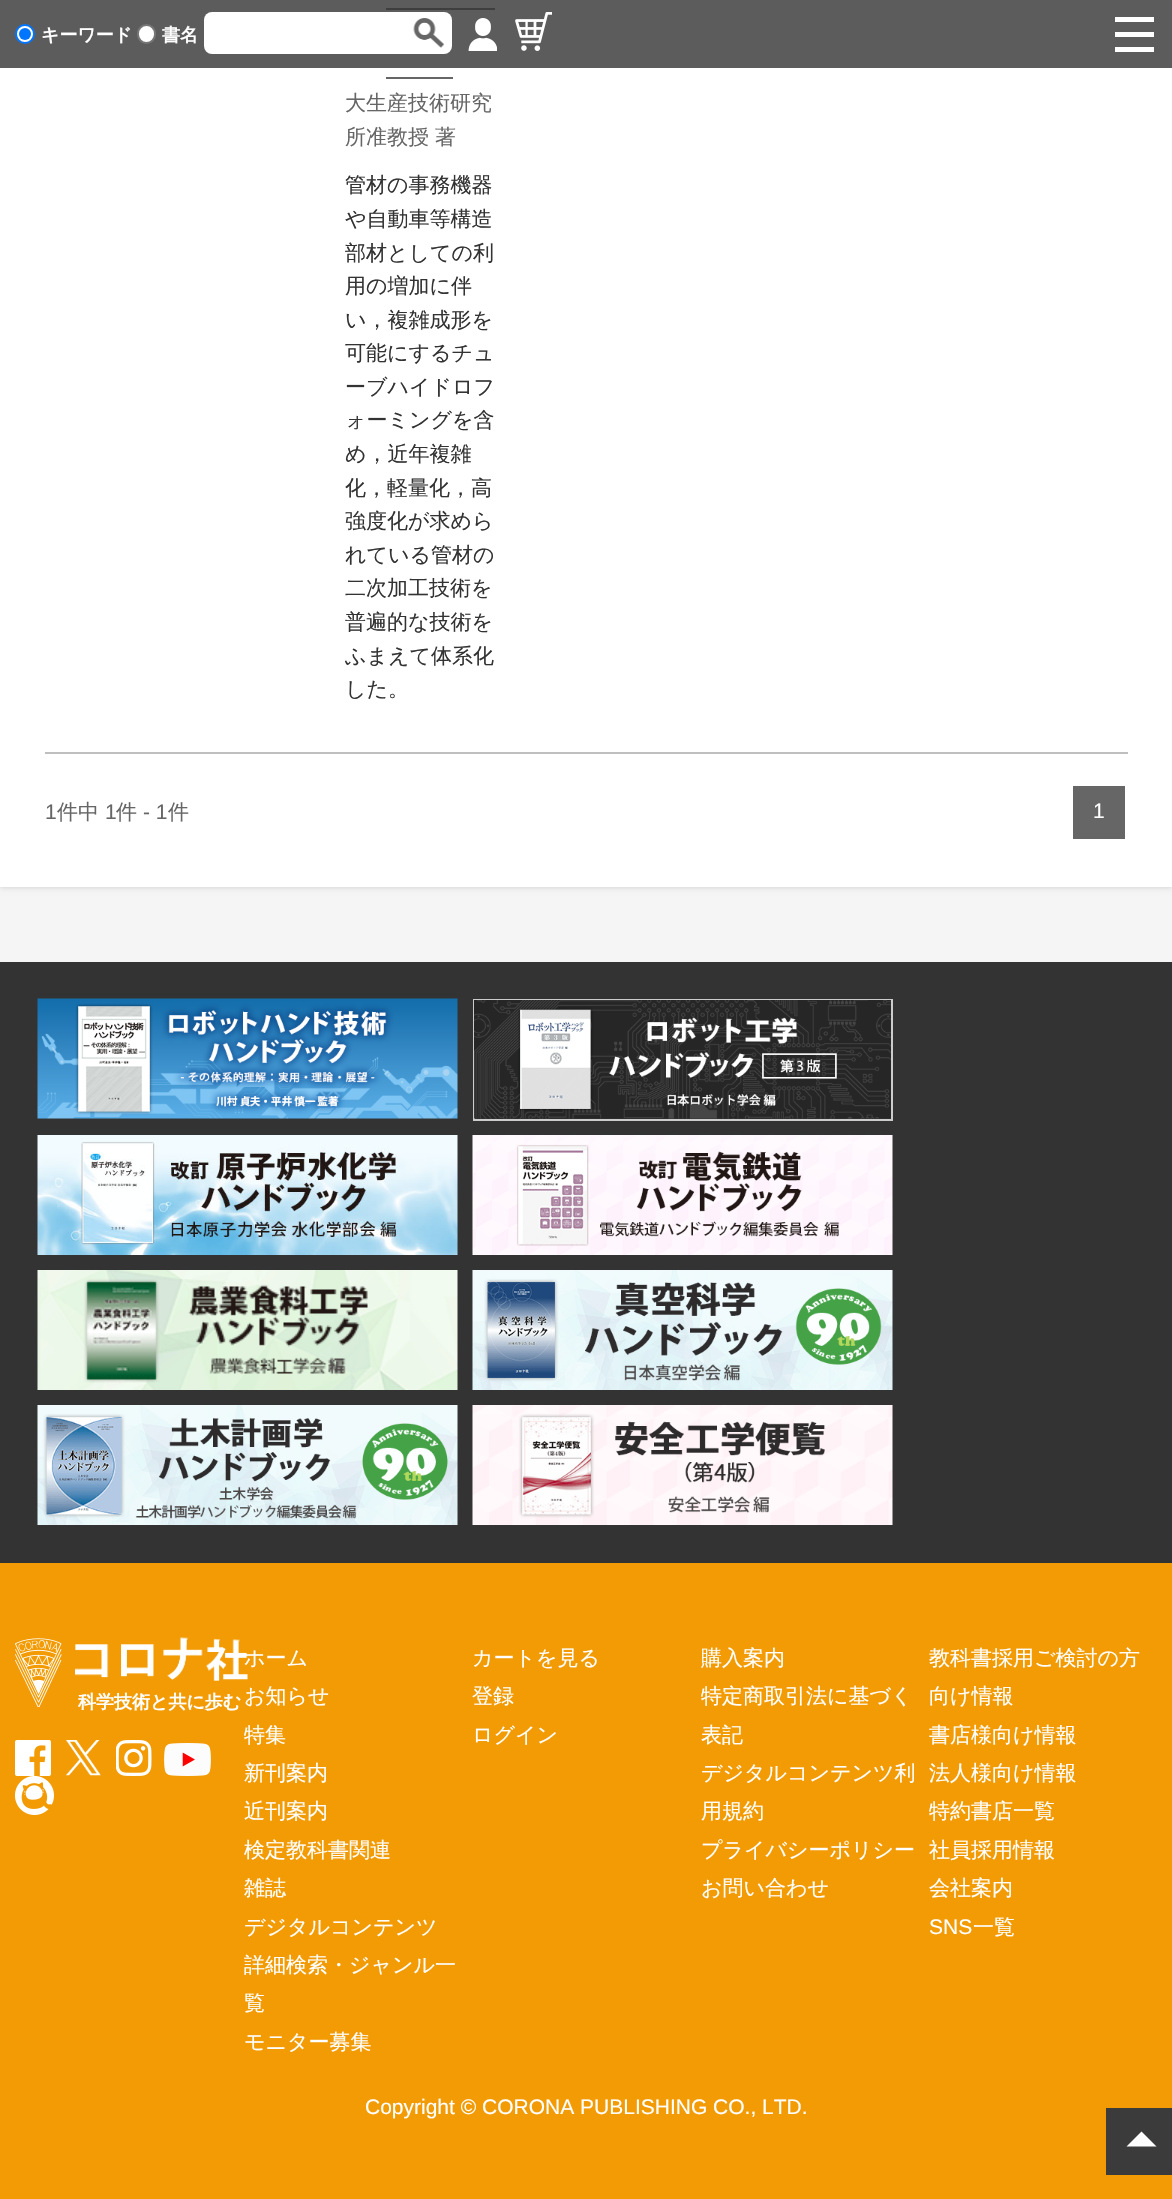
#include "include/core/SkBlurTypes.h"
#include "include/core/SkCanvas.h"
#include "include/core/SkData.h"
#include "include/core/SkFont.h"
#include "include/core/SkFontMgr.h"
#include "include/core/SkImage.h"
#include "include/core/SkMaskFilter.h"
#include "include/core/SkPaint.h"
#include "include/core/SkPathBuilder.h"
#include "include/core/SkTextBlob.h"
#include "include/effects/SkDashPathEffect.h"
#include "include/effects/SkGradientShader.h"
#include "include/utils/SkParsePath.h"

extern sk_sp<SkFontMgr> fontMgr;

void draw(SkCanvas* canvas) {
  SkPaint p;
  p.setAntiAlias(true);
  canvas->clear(SkColorSetRGB(245, 245, 245));
  p.setColor(SkColorSetRGB(204, 204, 204));
  p.setMaskFilter(SkMaskFilter::MakeBlur(kNormal_SkBlurStyle, 3));
  canvas->drawRect(SkRect::MakeLTRB(0, -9, 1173, 887), p);
  p.setMaskFilter(nullptr);
  p.setColor(SK_ColorWHITE);
  canvas->drawRect(SkRect::MakeLTRB(0, 0, 1172, 887), p);
  p.setColor(SkColorSetRGB(102, 102, 102));
  canvas->drawRect(SkRect::MakeLTRB(386, 8, 495, 10), p);
  p.setColor(SkColorSetARGB(204, 51, 51, 51));
  canvas->drawRect(SkRect::MakeLTRB(0, 0, 1172, 68), p);
  p.setColor(SK_ColorWHITE);
  canvas->drawCircle(25, 34, 9, p);
  p.setStyle(SkPaint::kStroke_Style);
  p.setStrokeWidth(2);
  p.setColor(SkColorSetRGB(0, 117, 255));
  canvas->drawCircle(25, 34, 9, p);
  p.setStyle(SkPaint::kFill_Style);
  canvas->drawCircle(25, 34, 6, p);
  p.setColor(SK_ColorWHITE);
  canvas->drawRoundRect(SkRect::MakeLTRB(138, 25, 155, 43), 8.5f, 8.5f, p);
  p.setStyle(SkPaint::kStroke_Style);
  p.setColor(SkColorSetRGB(118, 118, 118));
  canvas->drawRoundRect(SkRect::MakeLTRB(138, 25, 155, 43), 8.5f, 8.5f, p);
  p.setStyle(SkPaint::kFill_Style);
  p.setColor(SK_ColorWHITE);
  canvas->drawRoundRect(SkRect::MakeLTRB(204, 12, 452, 54), 8, 8, p);
  canvas->drawImageRect(SkImages::DeferredFromEncodedData(SkData::MakeFromFileName("images/1.png")), SkRect::MakeLTRB(413, 18, 444, 48), SkSamplingOptions());
  canvas->drawImageRect(SkImages::DeferredFromEncodedData(SkData::MakeFromFileName("images/2.png")), SkRect::MakeLTRB(468, 18, 497, 51), SkSamplingOptions());
  canvas->drawImageRect(SkImages::DeferredFromEncodedData(SkData::MakeFromFileName("images/3.png")), SkRect::MakeLTRB(515, 12, 552, 51), SkSamplingOptions());
  canvas->drawRect(SkRect::MakeLTRB(1115, 17, 1154, 22), p);
  canvas->drawRect(SkRect::MakeLTRB(1115, 32, 1154, 37), p);
  canvas->drawRect(SkRect::MakeLTRB(1115, 47, 1154, 52), p);
  p.setColor(SkColorSetRGB(191, 191, 191));
  canvas->drawRect(SkRect::MakeLTRB(45, 752, 1128, 754), p);
  p.setColor(SkColorSetRGB(102, 102, 102));
  canvas->drawRect(SkRect::MakeLTRB(386, 77, 453, 79), p);
  canvas->drawRect(SkRect::MakeLTRB(1073, 786, 1125, 839), p);
  p.setColor(SkColorSetRGB(51, 51, 51));
  canvas->drawRect(SkRect::MakeLTRB(0, 962, 1172, 1563), p);
  canvas->drawImageRect(SkImages::DeferredFromEncodedData(SkData::MakeFromFileName("images/4.png")), SkRect::MakeLTRB(37, 998, 458, 1119), SkSamplingOptions());
  p.setStyle(SkPaint::kStroke_Style);
  p.setColor(SkColorSetRGB(204, 204, 204));
  canvas->drawRect(SkRect::MakeLTRB(474, 1000, 892, 1120), p);
  canvas->drawImageRect(SkImages::DeferredFromEncodedData(SkData::MakeFromFileName("images/5.png")), SkRect::MakeLTRB(474, 1000, 891, 1119), SkSamplingOptions());
  canvas->drawImageRect(SkImages::DeferredFromEncodedData(SkData::MakeFromFileName("images/6.png")), SkRect::MakeLTRB(37, 1135, 458, 1255), SkSamplingOptions());
  canvas->drawImageRect(SkImages::DeferredFromEncodedData(SkData::MakeFromFileName("images/7.png")), SkRect::MakeLTRB(472, 1135, 893, 1255), SkSamplingOptions());
  canvas->drawImageRect(SkImages::DeferredFromEncodedData(SkData::MakeFromFileName("images/8.png")), SkRect::MakeLTRB(37, 1270, 458, 1390), SkSamplingOptions());
  canvas->drawImageRect(SkImages::DeferredFromEncodedData(SkData::MakeFromFileName("images/9.png")), SkRect::MakeLTRB(472, 1270, 893, 1390), SkSamplingOptions());
  canvas->drawImageRect(SkImages::DeferredFromEncodedData(SkData::MakeFromFileName("images/10.png")), SkRect::MakeLTRB(37, 1405, 458, 1525), SkSamplingOptions());
  canvas->drawImageRect(SkImages::DeferredFromEncodedData(SkData::MakeFromFileName("images/11.png")), SkRect::MakeLTRB(472, 1405, 893, 1525), SkSamplingOptions());
  p.setStyle(SkPaint::kFill_Style);
  p.setColor(SkColorSetRGB(242, 155, 4));
  canvas->drawRect(SkRect::MakeLTRB(0, 1563, 1172, 2199), p);
  canvas->drawImageRect(SkImages::DeferredFromEncodedData(SkData::MakeFromFileName("images/12.png")), SkRect::MakeLTRB(15, 1638, 62, 1707), SkSamplingOptions());
  canvas->drawImageRect(SkImages::DeferredFromEncodedData(SkData::MakeFromFileName("images/14.png")), SkRect::MakeLTRB(15, 1740, 51, 1776), SkSamplingOptions());
  canvas->drawImageRect(SkImages::DeferredFromEncodedData(SkData::MakeFromFileName("images/15.png")), SkRect::MakeLTRB(65, 1740, 101, 1776), SkSamplingOptions());
  canvas->drawImageRect(SkImages::DeferredFromEncodedData(SkData::MakeFromFileName("images/16.png")), SkRect::MakeLTRB(116, 1740, 152, 1776), SkSamplingOptions());
  canvas->drawImageRect(SkImages::DeferredFromEncodedData(SkData::MakeFromFileName("images/17.png")), SkRect::MakeLTRB(164, 1743, 211, 1776), SkSamplingOptions());
  canvas->drawImageRect(SkImages::DeferredFromEncodedData(SkData::MakeFromFileName("images/18.png")), SkRect::MakeLTRB(15, 1776, 54, 1815), SkSamplingOptions());
  p.setColor(SkColorSetRGB(59, 59, 59));
  canvas->drawRect(SkRect::MakeLTRB(1106, 2108, 1172, 2175), p);
  p.setColor(SK_ColorWHITE);
  canvas->drawPath(SkPathBuilder().moveTo(1156.5f, 2146.5f).lineTo(1126.5f, 2146.5f).lineTo(1141.5f, 2131.5f).close().detach(), p);
  SkFont font1(fontMgr->matchFamilyStyle("WenQuanYi Zen Hei", SkFontStyle::Bold()), 18);
  font1.setSubpixel(true);
  canvas->drawString("キーワード", 41, 41, font1, p);
  canvas->drawString("書名", 162, 41, font1, p);
  SkFont font2(fontMgr->matchFamilyStyle("WenQuanYi Zen Hei", SkFontStyle(500, SkFontStyle::kNormal_Width, SkFontStyle::kUpright_Slant)), 21);
  font2.setSubpixel(true);
  p.setColor(SkColorSetRGB(102, 102, 102));
  canvas->drawString("大生産技術研究", 345, 110, font2, p);
  canvas->drawString("所准教授", 345, 144, font2, p);
  canvas->drawString("著", 435, 144, font2, p);
  p.setColor(SkColorSetRGB(51, 51, 51));
  canvas->drawString("管材の事務機器", 345, 192, font2, p);
  canvas->drawString("や自動車等構造", 345, 226, font2, p);
  canvas->drawString("部材としての利", 345, 260, font2, p);
  canvas->drawString("用の増加に伴", 345, 293, font2, p);
  canvas->drawString("い，複雑成形を", 345, 327, font2, p);
  canvas->drawString("可能にするチュ", 345, 360, font2, p);
  canvas->drawString("ーブハイドロフ", 345, 394, font2, p);
  canvas->drawString("ォーミングを含", 345, 427, font2, p);
  canvas->drawString("め，近年複雑", 345, 461, font2, p);
  canvas->drawString("化，軽量化，高", 345, 495, font2, p);
  canvas->drawString("強度化が求めら", 345, 528, font2, p);
  canvas->drawString("れている管材の", 345, 562, font2, p);
  canvas->drawString("二次加工技術を", 345, 595, font2, p);
  canvas->drawString("普遍的な技術を", 345, 629, font2, p);
  canvas->drawString("ふまえて体系化", 345, 663, font2, p);
  canvas->drawString("した。", 345, 696, font2, p);
  SkFont font3(fontMgr->matchFamilyStyle("Liberation Sans", SkFontStyle::Normal()), 21);
  font3.setSubpixel(true);
  p.setColor(SkColorSetRGB(102, 102, 102));
  canvas->drawString("1", 45, 819, font3, p);
  canvas->drawString("件中", 57, 819, font2, p);
  canvas->drawString("1", 105, 819, font3, p);
  canvas->drawString("件", 116, 819, font2, p);
  canvas->drawString("- 1", 143, 819, font3, p);
  canvas->drawString("件", 168, 819, font2, p);
  p.setColor(SK_ColorWHITE);
  canvas->drawString("1", 1093, 818, font3, p);
  canvas->drawString("科学技術と共に歩む", 78, 1708, font1, p);
  canvas->drawString("ホーム", 244, 1665, font2, p);
  canvas->drawImageRect(SkImages::DeferredFromEncodedData(SkData::MakeFromFileName("images/13.png")), SkRect::MakeLTRB(75, 1637, 248, 1681), SkSamplingOptions());
  canvas->drawString("お知らせ", 244, 1703, font2, p);
  canvas->drawString("特集", 244, 1742, font2, p);
  canvas->drawString("新刊案内", 244, 1780, font2, p);
  canvas->drawString("近刊案内", 244, 1818, font2, p);
  canvas->drawString("検定教科書関連", 244, 1857, font2, p);
  canvas->drawString("雑誌", 244, 1895, font2, p);
  canvas->drawString("デジタルコンテンツ", 244, 1934, font2, p);
  canvas->drawString("詳細検索・ジャンル一", 244, 1972, font2, p);
  canvas->drawString("覧", 244, 2010, font2, p);
  canvas->drawString("モニター募集", 244, 2049, font2, p);
  canvas->drawString("カートを見る", 472, 1665, font2, p);
  canvas->drawString("登録", 472, 1703, font2, p);
  canvas->drawString("ログイン", 472, 1742, font2, p);
  canvas->drawString("購入案内", 701, 1665, font2, p);
  canvas->drawString("特定商取引法に基づく", 701, 1703, font2, p);
  canvas->drawString("表記", 701, 1742, font2, p);
  canvas->drawString("デジタルコンテンツ利", 701, 1780, font2, p);
  canvas->drawString("用規約", 701, 1818, font2, p);
  canvas->drawString("プライバシーポリシー", 701, 1857, font2, p);
  canvas->drawString("お問い合わせ", 701, 1895, font2, p);
  canvas->drawString("教科書採用ご検討の方", 929, 1665, font2, p);
  canvas->drawString("向け情報", 929, 1703, font2, p);
  canvas->drawString("書店様向け情報", 929, 1742, font2, p);
  canvas->drawString("法人様向け情報", 929, 1780, font2, p);
  canvas->drawString("特約書店一覧", 929, 1818, font2, p);
  canvas->drawString("社員採用情報", 929, 1857, font2, p);
  canvas->drawString("会社案内", 929, 1895, font2, p);
  canvas->drawString("SNS", 929, 1934, font3, p);
  canvas->drawString("一覧", 973, 1934, font2, p);
  canvas->drawString("Copyright © CORONA PUBLISHING CO., LTD.", 365, 2114, font3, p);
}
